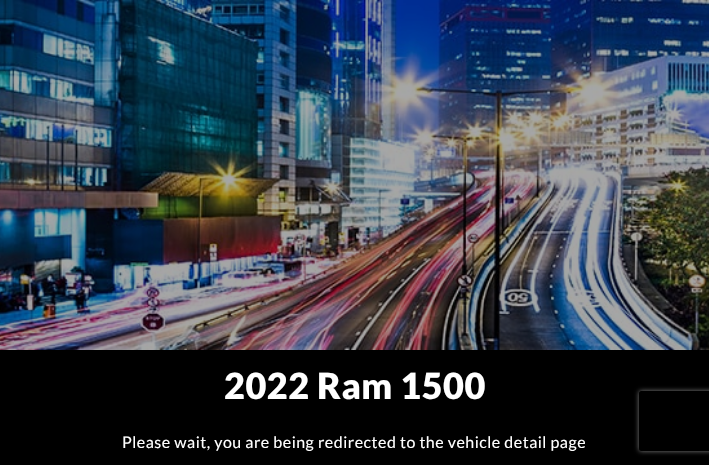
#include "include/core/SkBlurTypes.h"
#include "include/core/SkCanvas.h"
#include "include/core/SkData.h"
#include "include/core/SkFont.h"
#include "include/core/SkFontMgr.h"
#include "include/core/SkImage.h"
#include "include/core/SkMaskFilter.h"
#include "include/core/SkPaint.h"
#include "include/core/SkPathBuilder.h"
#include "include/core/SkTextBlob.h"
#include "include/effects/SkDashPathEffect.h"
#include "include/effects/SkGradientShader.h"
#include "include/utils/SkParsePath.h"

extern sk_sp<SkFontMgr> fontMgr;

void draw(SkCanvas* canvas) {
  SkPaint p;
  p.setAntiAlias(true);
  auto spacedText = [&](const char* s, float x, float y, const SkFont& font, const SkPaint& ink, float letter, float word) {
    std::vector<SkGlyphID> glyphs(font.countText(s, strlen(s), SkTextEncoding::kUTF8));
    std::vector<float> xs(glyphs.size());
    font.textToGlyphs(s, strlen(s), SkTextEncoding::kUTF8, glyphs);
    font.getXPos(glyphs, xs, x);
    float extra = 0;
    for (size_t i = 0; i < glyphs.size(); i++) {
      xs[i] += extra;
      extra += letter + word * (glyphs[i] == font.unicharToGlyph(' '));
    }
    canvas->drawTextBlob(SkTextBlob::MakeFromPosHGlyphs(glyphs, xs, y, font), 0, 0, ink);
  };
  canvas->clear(SK_ColorBLACK);
  canvas->drawImageRect(SkImages::DeferredFromEncodedData(SkData::MakeFromFileName("images/1.png")), SkRect::MakeLTRB(0, 0, 709, 350), SkSamplingOptions());
  canvas->save();
  canvas->clipPath(SkPathBuilder(SkPathFillType::kEvenOdd).moveTo(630, 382).lineTo(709, 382).lineTo(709, 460).lineTo(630, 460).close().moveTo(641, 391).lineTo(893, 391).cubicTo(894, 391, 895, 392, 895, 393).lineTo(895, 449).cubicTo(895, 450, 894, 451, 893, 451).lineTo(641, 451).cubicTo(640, 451, 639, 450, 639, 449).lineTo(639, 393).cubicTo(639, 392, 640, 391, 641, 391).close().detach(), true);
  p.setColor(SkColorSetRGB(128, 128, 128));
  p.setMaskFilter(SkMaskFilter::MakeBlur(kNormal_SkBlurStyle, 2.5f));
  canvas->drawRoundRect(SkRect::MakeLTRB(639, 391, 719, 451), 2, 2, p);
  p.setMaskFilter(nullptr);
  canvas->restore();
  SkFont font1(fontMgr->matchFamilyStyle("Lato", SkFontStyle(900, SkFontStyle::kNormal_Width, SkFontStyle::kUpright_Slant)), 36);
  font1.setSubpixel(true);
  p.setColor(SK_ColorWHITE);
  spacedText("2022 Ram 1500", 224, 399, font1, p, 0.5f, 0);
  SkFont font2(fontMgr->matchFamilyStyle("Lato", SkFontStyle::Normal()), 16);
  font2.setSubpixel(true);
  spacedText("Please wait, you are being redirected to the vehicle detail page", 122, 448, font2, p, 0.5f, 0);
}
